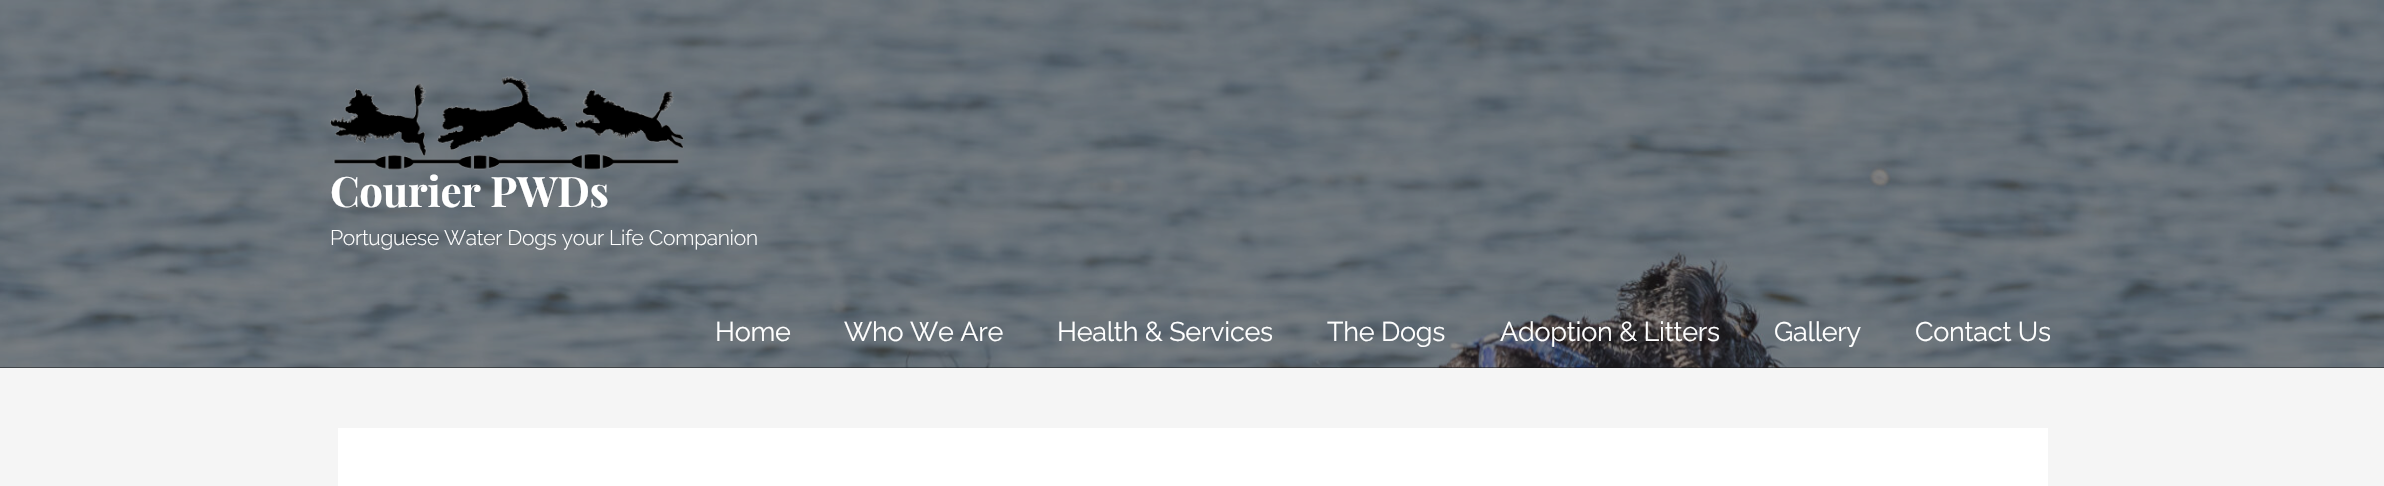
#include "include/core/SkBlurTypes.h"
#include "include/core/SkCanvas.h"
#include "include/core/SkData.h"
#include "include/core/SkFont.h"
#include "include/core/SkFontMgr.h"
#include "include/core/SkImage.h"
#include "include/core/SkMaskFilter.h"
#include "include/core/SkPaint.h"
#include "include/core/SkPathBuilder.h"
#include "include/core/SkTextBlob.h"
#include "include/effects/SkDashPathEffect.h"
#include "include/effects/SkGradientShader.h"
#include "include/utils/SkParsePath.h"

extern sk_sp<SkFontMgr> fontMgr;

void draw(SkCanvas* canvas) {
  SkPaint p;
  p.setAntiAlias(true);
  auto spacedText = [&](const char* s, float x, float y, const SkFont& font, const SkPaint& ink, float letter, float word) {
    std::vector<SkGlyphID> glyphs(font.countText(s, strlen(s), SkTextEncoding::kUTF8));
    std::vector<float> xs(glyphs.size());
    font.textToGlyphs(s, strlen(s), SkTextEncoding::kUTF8, glyphs);
    font.getXPos(glyphs, xs, x);
    float extra = 0;
    for (size_t i = 0; i < glyphs.size(); i++) {
      xs[i] += extra;
      extra += letter + word * (glyphs[i] == font.unicharToGlyph(' '));
    }
    canvas->drawTextBlob(SkTextBlob::MakeFromPosHGlyphs(glyphs, xs, y, font), 0, 0, ink);
  };
  canvas->clear(SkColorSetRGB(245, 245, 245));
  p.setColor(SkColorSetRGB(20, 20, 20));
  canvas->drawRect(SkRect::MakeLTRB(0, 367, 2384, 368), p);
  canvas->drawImageRect(SkImages::DeferredFromEncodedData(SkData::MakeFromFileName("images/1.png")), SkRect::MakeLTRB(0, 0, 2384, 368), SkSamplingOptions());
  canvas->drawImageRect(SkImages::DeferredFromEncodedData(SkData::MakeFromFileName("images/2.png")), SkRect::MakeLTRB(330, 76, 684, 170), SkSamplingOptions());
  p.setColor(SK_ColorWHITE);
  canvas->drawRect(SkRect::MakeLTRB(338, 428, 2048, 486), p);
  SkFont font1(fontMgr->matchFamilyStyle("Playfair Display", SkFontStyle::Bold()), 42);
  font1.setSubpixel(true);
  spacedText("Courier PWDs", 330, 207, font1, p, -0.25f, 0);
  SkFont font2(fontMgr->matchFamilyStyle("Raleway", SkFontStyle(300, SkFontStyle::kNormal_Width, SkFontStyle::kUpright_Slant)), 21);
  font2.setSubpixel(true);
  spacedText("Portuguese Water Dogs your Life Companion", 330, 245, font2, p, -0.25f, 0);
  SkFont font3(fontMgr->matchFamilyStyle("Raleway", SkFontStyle::Normal()), 27);
  font3.setSubpixel(true);
  spacedText("Home", 715, 341, font3, p, -0.25f, 0);
  spacedText("Who We Are", 844, 341, font3, p, -0.25f, 0);
  spacedText("Health & Services", 1057, 341, font3, p, -0.25f, 0);
  spacedText("The Dogs", 1327, 341, font3, p, -0.25f, 0);
  spacedText("Adoption & Litters", 1500, 341, font3, p, -0.25f, 0);
  spacedText("Gallery", 1774, 341, font3, p, -0.25f, 0);
  spacedText("Contact Us", 1915, 341, font3, p, -0.25f, 0);
}
